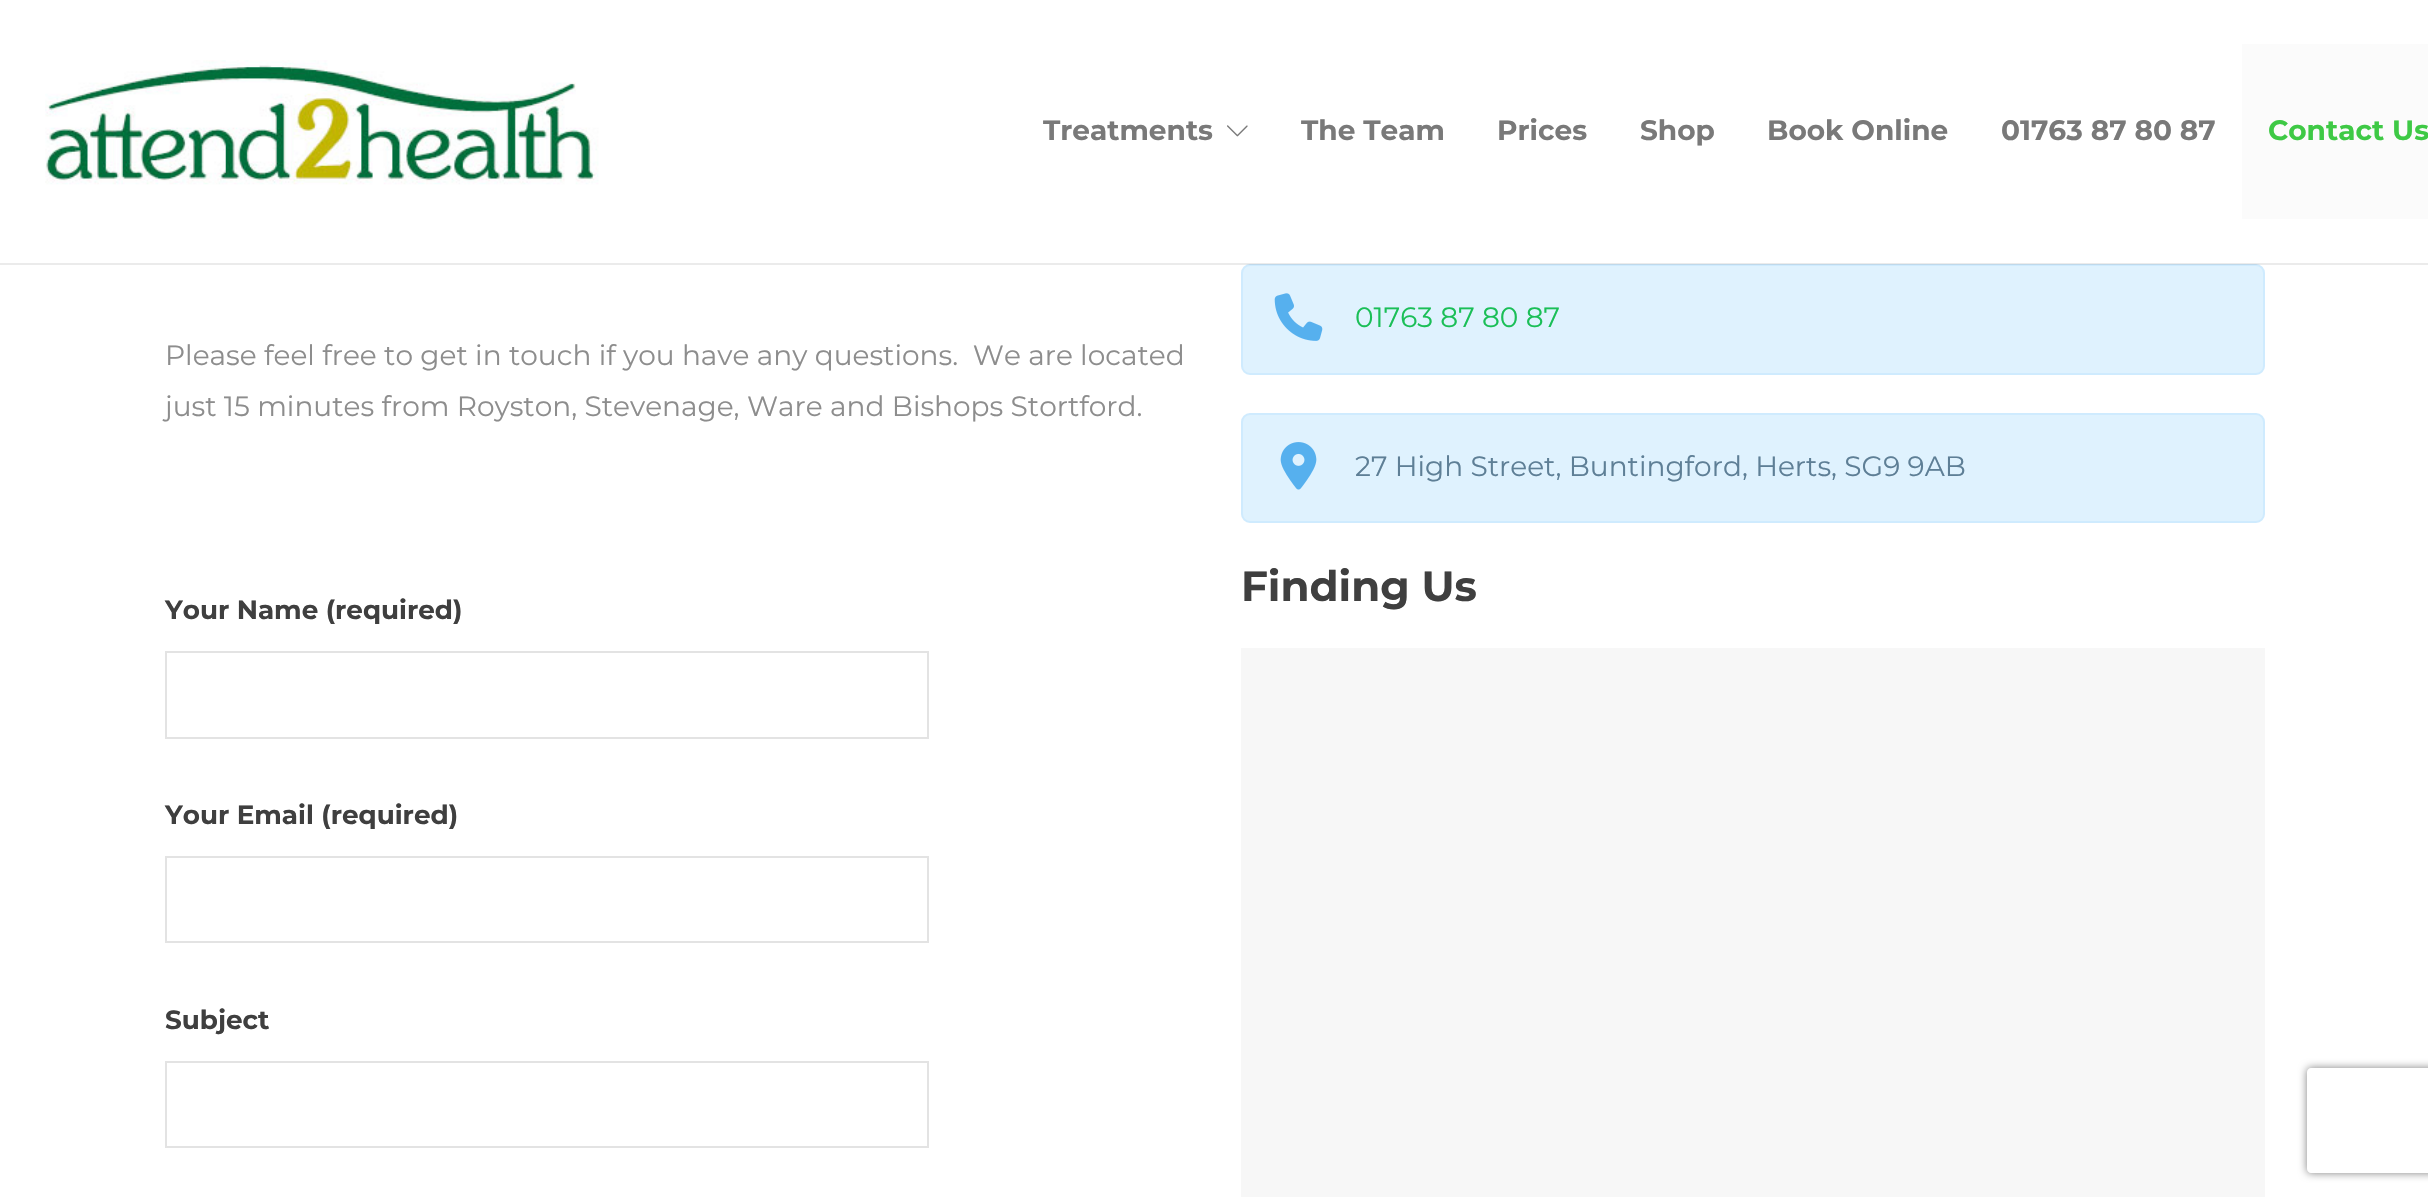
#include "include/core/SkBlurTypes.h"
#include "include/core/SkCanvas.h"
#include "include/core/SkData.h"
#include "include/core/SkFont.h"
#include "include/core/SkFontMgr.h"
#include "include/core/SkImage.h"
#include "include/core/SkMaskFilter.h"
#include "include/core/SkPaint.h"
#include "include/core/SkPathBuilder.h"
#include "include/core/SkTextBlob.h"
#include "include/effects/SkDashPathEffect.h"
#include "include/effects/SkGradientShader.h"
#include "include/utils/SkParsePath.h"

extern sk_sp<SkFontMgr> fontMgr;

void draw(SkCanvas* canvas) {
  SkPaint p;
  p.setAntiAlias(true);
  canvas->clear(SK_ColorWHITE);
  p.setColor(SkColorSetRGB(223, 242, 254));
  canvas->drawRoundRect(SkRect::MakeLTRB(1242, 265, 2264, 374), 8, 8, p);
  p.setStyle(SkPaint::kStroke_Style);
  p.setStrokeWidth(2);
  p.setColor(SkColorSetRGB(207, 235, 254));
  canvas->drawRoundRect(SkRect::MakeLTRB(1242, 265, 2264, 374), 8, 8, p);
  p.setStyle(SkPaint::kFill_Style);
  p.setColor(SkColorSetARGB(20, 0, 0, 0));
  canvas->drawRect(SkRect::MakeLTRB(0, 263, 2428, 265), p);
  canvas->drawImageRect(SkImages::DeferredFromEncodedData(SkData::MakeFromFileName("images/1.png")), SkRect::MakeLTRB(45, 60, 599, 185), SkSamplingOptions());
  canvas->drawImageRect(SkImages::DeferredFromEncodedData(SkData::MakeFromFileName("images/2.png")), SkRect::MakeLTRB(1227, 125, 1248, 137), SkSamplingOptions());
  p.setColor(SkColorSetRGB(251, 251, 251));
  canvas->drawRect(SkRect::MakeLTRB(2242, 44, 2428, 219), p);
  p.setStyle(SkPaint::kStroke_Style);
  p.setColor(SkColorSetRGB(227, 227, 227));
  canvas->drawRect(SkRect::MakeLTRB(166, 652, 928, 738), p);
  canvas->drawRect(SkRect::MakeLTRB(166, 857, 928, 942), p);
  canvas->drawRect(SkRect::MakeLTRB(166, 1062, 928, 1147), p);
  canvas->drawImageRect(SkImages::DeferredFromEncodedData(SkData::MakeFromFileName("images/3.png")), SkRect::MakeLTRB(1274, 293, 1323, 341), SkSamplingOptions());
  p.setStyle(SkPaint::kFill_Style);
  p.setColor(SkColorSetRGB(223, 242, 254));
  canvas->drawRoundRect(SkRect::MakeLTRB(1242, 414, 2264, 522), 8, 8, p);
  p.setStyle(SkPaint::kStroke_Style);
  p.setColor(SkColorSetRGB(207, 235, 254));
  canvas->drawRoundRect(SkRect::MakeLTRB(1242, 414, 2264, 522), 8, 8, p);
  canvas->drawImageRect(SkImages::DeferredFromEncodedData(SkData::MakeFromFileName("images/4.png")), SkRect::MakeLTRB(1280, 442, 1317, 490), SkSamplingOptions());
  p.setStyle(SkPaint::kFill_Style);
  p.setColor(SkColorSetRGB(247, 247, 247));
  canvas->drawRect(SkRect::MakeLTRB(1241, 648, 2265, 1197), p);
  canvas->save();
  canvas->clipPath(SkPathBuilder(SkPathFillType::kEvenOdd).moveTo(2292, 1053).lineTo(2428, 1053).lineTo(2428, 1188).lineTo(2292, 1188).close().moveTo(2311, 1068).lineTo(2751, 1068).cubicTo(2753, 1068, 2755, 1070, 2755, 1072).lineTo(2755, 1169).cubicTo(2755, 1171, 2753, 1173, 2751, 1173).lineTo(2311, 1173).cubicTo(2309, 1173, 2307, 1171, 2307, 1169).lineTo(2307, 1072).cubicTo(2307, 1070, 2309, 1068, 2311, 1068).close().detach(), true);
  p.setColor(SkColorSetRGB(128, 128, 128));
  p.setMaskFilter(SkMaskFilter::MakeBlur(kNormal_SkBlurStyle, 4.5f));
  canvas->drawRoundRect(SkRect::MakeLTRB(2307, 1068, 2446, 1173), 4, 4, p);
  p.setMaskFilter(nullptr);
  canvas->restore();
  SkFont font1(fontMgr->matchFamilyStyle("Montserrat", SkFontStyle::Bold()), 28);
  font1.setSubpixel(true);
  p.setColor(SkColorSetRGB(121, 121, 121));
  canvas->drawString("Treatments", 1043, 140, font1, p);
  canvas->drawString("The Team", 1301, 140, font1, p);
  canvas->drawString("Prices", 1497, 140, font1, p);
  canvas->drawString("Shop", 1640, 140, font1, p);
  canvas->drawString("Book Online", 1767, 140, font1, p);
  canvas->drawString("01763 87 80 87", 2001, 140, font1, p);
  p.setColor(SkColorSetRGB(62, 201, 69));
  canvas->drawString("Contact Us", 2268, 140, font1, p);
  SkFont font2(fontMgr->matchFamilyStyle("Montserrat", SkFontStyle::Normal()), 28);
  font2.setSubpixel(true);
  p.setColor(SkColorSetRGB(141, 141, 141));
  canvas->drawString("Please feel free to get in touch if you have any questions.  We are located", 165, 365, font2, p);
  canvas->drawString("just 15 minutes from Royston, Stevenage, Ware and Bishops Stortford.", 165, 416, font2, p);
  SkFont font3(fontMgr->matchFamilyStyle("Montserrat", SkFontStyle::Bold()), 26.25f);
  font3.setSubpixel(true);
  p.setColor(SkColorSetRGB(63, 63, 63));
  canvas->drawString("Your Name (required)", 165, 619, font3, p);
  canvas->drawString("Your Email (required)", 165, 824, font3, p);
  canvas->drawString("Subject", 165, 1029, font3, p);
  p.setColor(SkColorSetRGB(26, 191, 87));
  canvas->drawString("01763 87 80 87", 1355, 327, font2, p);
  p.setColor(SkColorSetRGB(94, 127, 150));
  canvas->drawString("27 High Street, Buntingford, Herts, SG9 9AB", 1355, 476, font2, p);
  SkFont font4(fontMgr->matchFamilyStyle("Montserrat", SkFontStyle::Bold()), 42);
  font4.setSubpixel(true);
  p.setColor(SkColorSetRGB(63, 63, 63));
  canvas->drawString("Finding Us", 1241, 601, font4, p);
}
